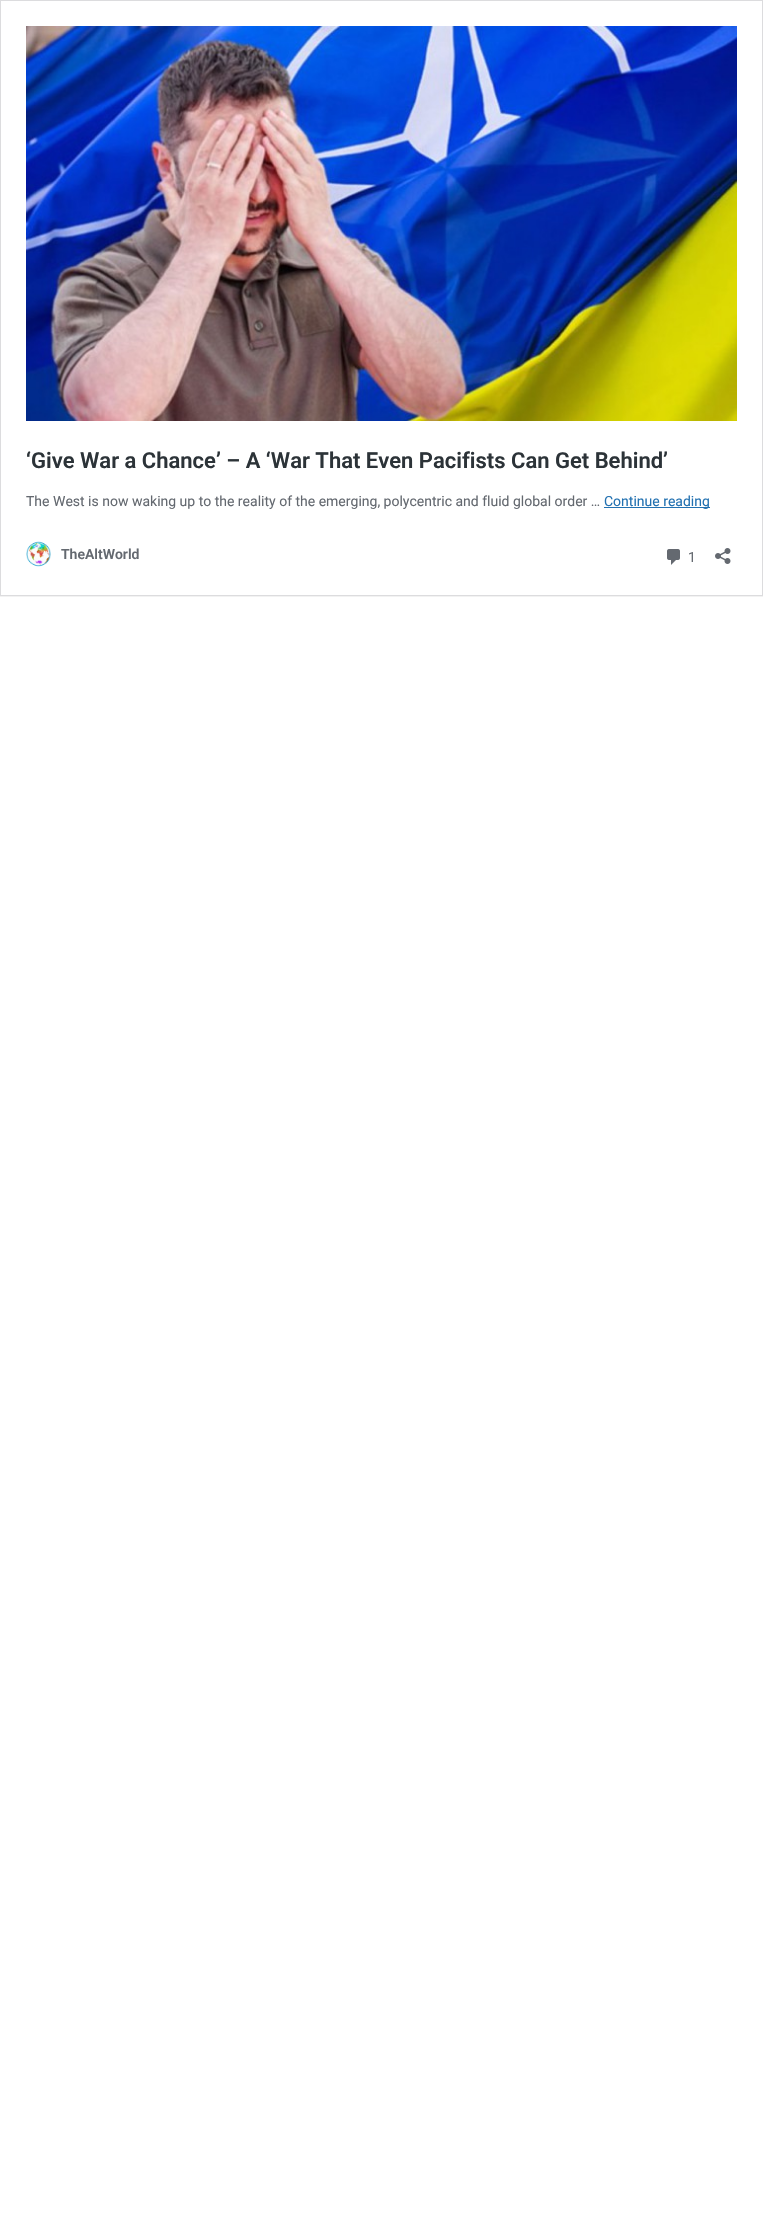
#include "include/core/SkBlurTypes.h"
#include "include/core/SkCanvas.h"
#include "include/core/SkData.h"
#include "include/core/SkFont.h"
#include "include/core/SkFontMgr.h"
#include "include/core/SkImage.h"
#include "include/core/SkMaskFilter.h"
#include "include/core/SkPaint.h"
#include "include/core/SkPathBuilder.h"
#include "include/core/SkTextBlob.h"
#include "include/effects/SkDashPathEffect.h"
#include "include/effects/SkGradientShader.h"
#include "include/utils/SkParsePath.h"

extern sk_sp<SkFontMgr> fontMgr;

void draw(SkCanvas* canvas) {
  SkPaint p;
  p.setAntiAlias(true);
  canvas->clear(SK_ColorWHITE);
  canvas->save();
  canvas->clipRect(SkRect::MakeLTRB(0, 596, 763, 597));
  p.setColor(SkColorSetARGB(13, 0, 0, 0));
  p.setMaskFilter(SkMaskFilter::MakeBlur(kNormal_SkBlurStyle, 0.5f));
  canvas->drawRect(SkRect::MakeLTRB(0, 1, 763, 597), p);
  p.setMaskFilter(nullptr);
  canvas->restore();
  p.setStyle(SkPaint::kStroke_Style);
  p.setStrokeWidth(1);
  p.setColor(SkColorSetRGB(220, 220, 222));
  canvas->drawRect(SkRect::MakeLTRB(0.5f, 0.5f, 762.5f, 595.5f), p);
  canvas->drawImageRect(SkImages::DeferredFromEncodedData(SkData::MakeFromFileName("images/1.png")), SkRect::MakeLTRB(26, 26, 737, 421), SkSamplingOptions());
  p.setStyle(SkPaint::kFill_Style);
  p.setColor(SkColorSetRGB(34, 113, 177));
  canvas->drawRect(SkRect::MakeLTRB(604, 507, 710, 508), p);
  canvas->drawImageRect(SkImages::DeferredFromEncodedData(SkData::MakeFromFileName("images/2.png")), SkRect::MakeLTRB(26, 541, 51, 567), SkSamplingOptions());
  canvas->drawImageRect(SkImages::DeferredFromEncodedData(SkData::MakeFromFileName("images/3.png")), SkRect::MakeLTRB(667, 549, 680, 565), SkSamplingOptions());
  canvas->drawImageRect(SkImages::DeferredFromEncodedData(SkData::MakeFromFileName("images/4.png")), SkRect::MakeLTRB(715, 548, 731, 564), SkSamplingOptions());
  SkFont font1(fontMgr->matchFamilyStyle("Roboto", SkFontStyle(600, SkFontStyle::kNormal_Width, SkFontStyle::kUpright_Slant)), 22);
  font1.setSubpixel(true);
  p.setColor(SkColorSetRGB(44, 51, 56));
  canvas->drawString("‘Give War a Chance’ – A ‘War That Even Pacifists Can Get Behind’", 26, 468, font1, p);
  SkFont font2(fontMgr->matchFamilyStyle("Roboto", SkFontStyle::Normal()), 14);
  font2.setSubpixel(true);
  p.setColor(SkColorSetRGB(100, 105, 112));
  canvas->drawString("The West is now waking up to the reality of the emerging, polycentric and fluid global order …", 26, 506, font2, p);
  p.setColor(SkColorSetRGB(34, 113, 177));
  canvas->drawString("Continue reading", 604, 506, font2, p);
  SkFont font3(fontMgr->matchFamilyStyle("Roboto", SkFontStyle(600, SkFontStyle::kNormal_Width, SkFontStyle::kUpright_Slant)), 14);
  font3.setSubpixel(true);
  p.setColor(SkColorSetRGB(100, 105, 112));
  canvas->drawString("TheAltWorld", 61, 559, font3, p);
  canvas->drawString("1", 688, 562, font2, p);
}
